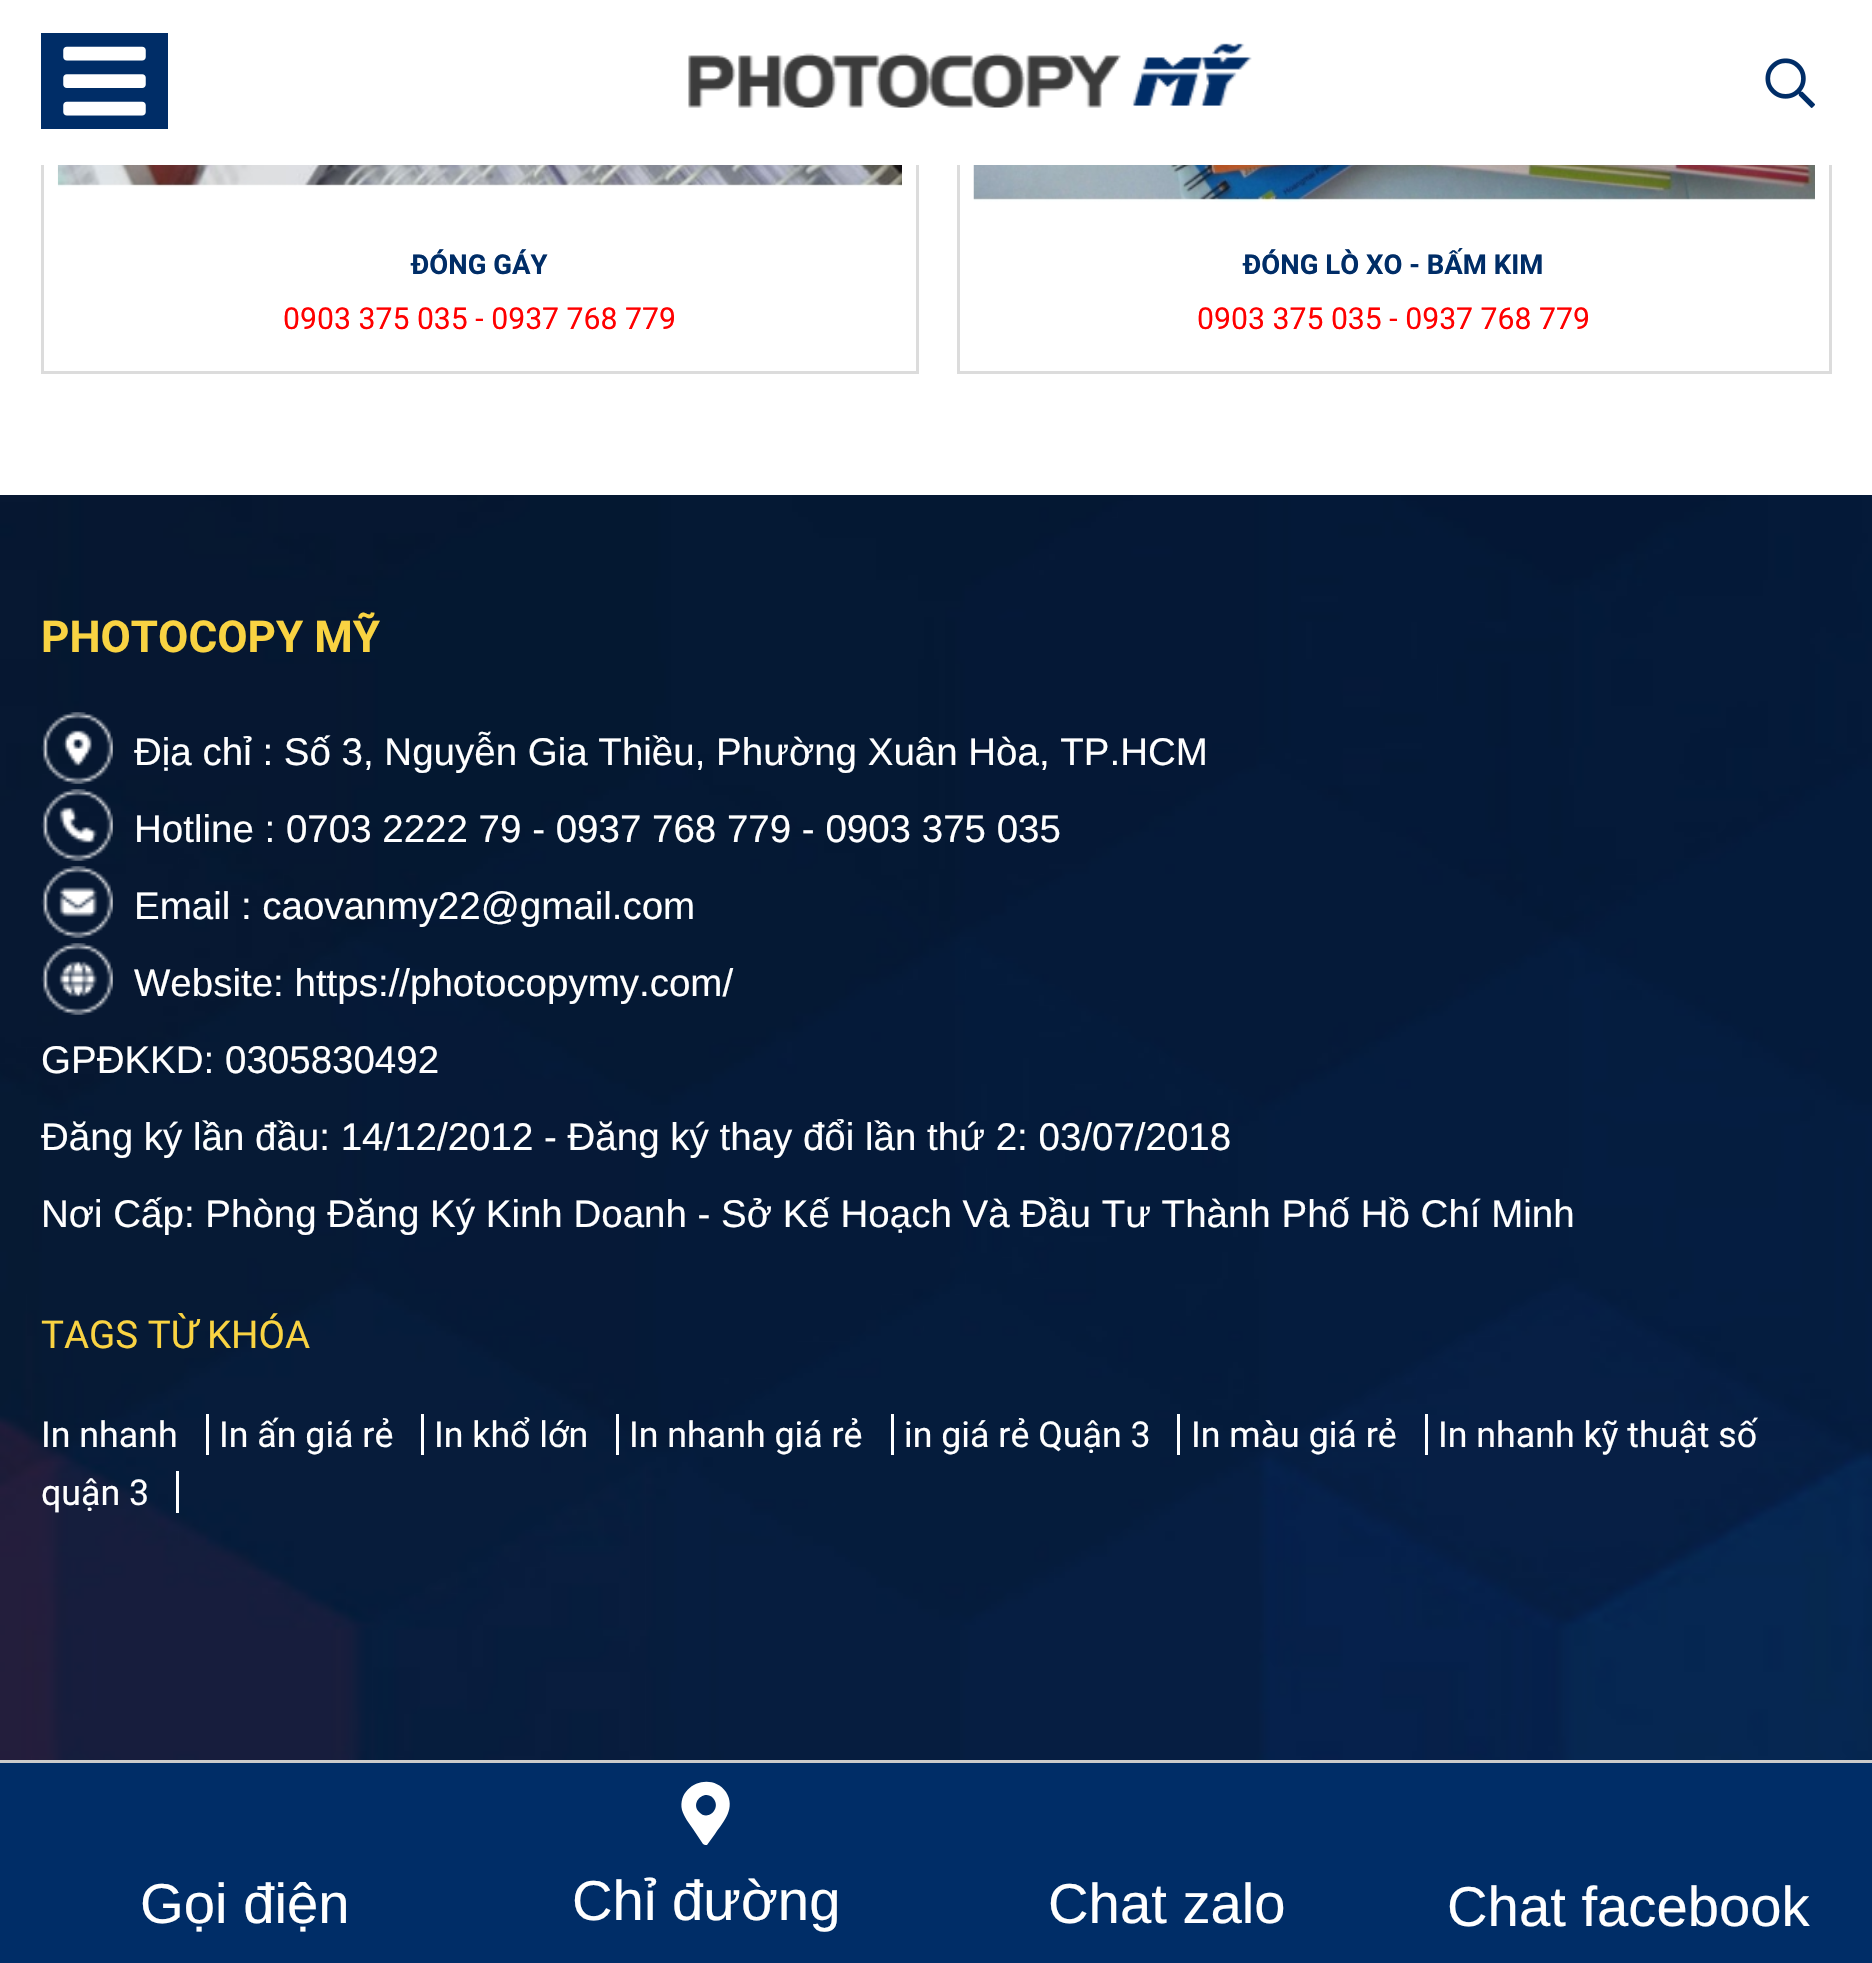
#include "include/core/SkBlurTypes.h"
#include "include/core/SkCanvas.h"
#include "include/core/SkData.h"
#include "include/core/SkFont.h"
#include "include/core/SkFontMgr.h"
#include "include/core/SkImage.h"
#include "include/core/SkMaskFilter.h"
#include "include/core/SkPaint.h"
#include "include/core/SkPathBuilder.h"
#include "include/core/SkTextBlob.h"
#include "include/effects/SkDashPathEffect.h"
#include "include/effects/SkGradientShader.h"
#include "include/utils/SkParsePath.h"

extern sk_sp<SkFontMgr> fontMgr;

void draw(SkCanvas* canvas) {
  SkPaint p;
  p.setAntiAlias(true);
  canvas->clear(SK_ColorWHITE);
  p.setStyle(SkPaint::kStroke_Style);
  p.setStrokeWidth(3);
  p.setColor(SkColorSetRGB(220, 220, 220));
  canvas->drawRect(SkRect::MakeLTRB(42.5f, -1.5f, 917.5f, 372.5f), p);
  canvas->drawRect(SkRect::MakeLTRB(958.5f, -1.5f, 1830.5f, 372.5f), p);
  p.setStyle(SkPaint::kFill_Style);
  p.setColor(SK_ColorWHITE);
  canvas->drawRect(SkRect::MakeLTRB(41, 0, 1832, 165), p);
  p.setColor(SkColorSetRGB(0, 45, 103));
  canvas->drawRect(SkRect::MakeLTRB(41, 33, 168, 129), p);
  canvas->drawImageRect(SkImages::DeferredFromEncodedData(SkData::MakeFromFileName("images/1.png")), SkRect::MakeLTRB(63, 46, 146, 116), SkSamplingOptions());
  canvas->drawImageRect(SkImages::DeferredFromEncodedData(SkData::MakeFromFileName("images/2.png")), SkRect::MakeLTRB(1765, 58, 1815, 108), SkSamplingOptions());
  canvas->drawImageRect(SkImages::DeferredFromEncodedData(SkData::MakeFromFileName("images/3.png")), SkRect::MakeLTRB(688, 43, 1252, 108), SkSamplingOptions());
  canvas->drawImageRect(SkImages::DeferredFromEncodedData(SkData::MakeFromFileName("images/4.png")), SkRect::MakeLTRB(57, 165, 902, 187), SkSamplingOptions());
  canvas->drawImageRect(SkImages::DeferredFromEncodedData(SkData::MakeFromFileName("images/5.png")), SkRect::MakeLTRB(973, 165, 1815, 202), SkSamplingOptions());
  canvas->drawImageRect(SkImages::DeferredFromEncodedData(SkData::MakeFromFileName("images/6.png")), SkRect::MakeLTRB(0, 495, 1872, 1760), SkSamplingOptions());
  canvas->drawImageRect(SkImages::DeferredFromEncodedData(SkData::MakeFromFileName("images/7.png")), SkRect::MakeLTRB(41, 712, 113, 784), SkSamplingOptions());
  canvas->drawImageRect(SkImages::DeferredFromEncodedData(SkData::MakeFromFileName("images/8.png")), SkRect::MakeLTRB(41, 789, 113, 861), SkSamplingOptions());
  canvas->drawImageRect(SkImages::DeferredFromEncodedData(SkData::MakeFromFileName("images/9.png")), SkRect::MakeLTRB(41, 866, 113, 938), SkSamplingOptions());
  canvas->drawImageRect(SkImages::DeferredFromEncodedData(SkData::MakeFromFileName("images/10.png")), SkRect::MakeLTRB(41, 943, 113, 1015), SkSamplingOptions());
  p.setColor(SK_ColorWHITE);
  canvas->drawRect(SkRect::MakeLTRB(206, 1414, 209, 1455), p);
  canvas->drawRect(SkRect::MakeLTRB(421, 1414, 424, 1455), p);
  canvas->drawRect(SkRect::MakeLTRB(616, 1414, 619, 1455), p);
  canvas->drawRect(SkRect::MakeLTRB(891, 1414, 894, 1455), p);
  canvas->drawRect(SkRect::MakeLTRB(1177, 1414, 1180, 1455), p);
  canvas->drawRect(SkRect::MakeLTRB(1425, 1414, 1428, 1455), p);
  canvas->drawRect(SkRect::MakeLTRB(176, 1471, 179, 1513), p);
  p.setColor(SkColorSetRGB(0, 45, 103));
  canvas->drawRect(SkRect::MakeLTRB(0, 1763, 1872, 1963), p);
  p.setColor(SkColorSetRGB(203, 203, 203));
  canvas->drawRect(SkRect::MakeLTRB(0, 1760, 1872, 1763), p);
  p.setColor(SK_ColorWHITE);
  canvas->drawPath(SkPathBuilder().moveTo(703, 1844).lineTo(693, 1829).cubicTo(689, 1823, 684, 1817, 682, 1810).cubicTo(677, 1785, 711, 1771, 726, 1792).cubicTo(736, 1808, 724, 1821, 715, 1834).lineTo(707, 1845).cubicTo(706, 1845, 704, 1845, 703, 1844).close().moveTo(699, 1812).cubicTo(708, 1822, 722, 1808, 713, 1798).cubicTo(704, 1789, 690, 1803, 699, 1812).close().detach(), p);
  SkFont font1(fontMgr->matchFamilyStyle("Roboto", SkFontStyle::Bold()), 27.5f);
  font1.setSubpixel(true);
  p.setColor(SkColorSetRGB(0, 45, 103));
  canvas->drawString("ĐÓNG GÁY", 411, 274, font1, p);
  SkFont font2(fontMgr->matchFamilyStyle("Roboto", SkFontStyle::Normal()), 30.25f);
  font2.setSubpixel(true);
  p.setColor(SkColorSetRGB(255, 0, 0));
  canvas->drawString("0903 375 035 - 0937 768 779", 283, 329, font2, p);
  p.setColor(SkColorSetRGB(0, 45, 103));
  canvas->drawString("ĐÓNG LÒ XO - BẤM KIM", 1243, 274, font1, p);
  p.setColor(SkColorSetRGB(255, 0, 0));
  canvas->drawString("0903 375 035 - 0937 768 779", 1197, 329, font2, p);
  SkFont font3(fontMgr->matchFamilyStyle("Roboto", SkFontStyle::Bold()), 44);
  font3.setSubpixel(true);
  p.setColor(SkColorSetRGB(249, 211, 66));
  canvas->drawString("PHOTOCOPY MỸ", 41, 652, font3, p);
  SkFont font4(fontMgr->matchFamilyStyle("Liberation Sans", SkFontStyle::Normal()), 38.5f);
  font4.setSubpixel(true);
  p.setColor(SK_ColorWHITE);
  canvas->drawString("Địa chỉ : Số 3, Nguyễn Gia Thiều, Phường Xuân Hòa, TP.HCM", 134, 765, font4, p);
  canvas->drawString("Hotline : 0703 2222 79 - 0937 768 779 - 0903 375 035", 134, 842, font4, p);
  canvas->drawString("Email : caovanmy22@gmail.com", 134, 919, font4, p);
  canvas->drawString("Website: https://photocopymy.com/", 134, 996, font4, p);
  canvas->drawString("GPĐKKD: 0305830492", 41, 1073, font4, p);
  canvas->drawString("Đăng ký lần đầu: 14/12/2012 - Đăng ký thay đổi lần thứ 2: 03/07/2018", 41, 1150, font4, p);
  canvas->drawString("Nơi Cấp: Phòng Đăng Ký Kinh Doanh - Sở Kế Hoạch Và Đầu Tư Thành Phố Hồ Chí Minh", 41, 1227, font4, p);
  SkFont font5(fontMgr->matchFamilyStyle("Roboto", SkFontStyle::Normal()), 38.5f);
  font5.setSubpixel(true);
  p.setColor(SkColorSetRGB(249, 211, 66));
  canvas->drawString("TAGS TỪ KHÓA", 41, 1348, font5, p);
  SkFont font6(fontMgr->matchFamilyStyle("Roboto", SkFontStyle::Normal()), 35.75f);
  font6.setSubpixel(true);
  p.setColor(SK_ColorWHITE);
  canvas->drawString("In nhanh", 41, 1447, font6, p);
  canvas->drawString("In ấn giá rẻ", 219, 1447, font6, p);
  canvas->drawString("In khổ lớn", 434, 1447, font6, p);
  canvas->drawString("In nhanh giá rẻ", 629, 1447, font6, p);
  canvas->drawString("in giá rẻ Quận 3", 904, 1447, font6, p);
  canvas->drawString("In màu giá rẻ", 1191, 1447, font6, p);
  canvas->drawString("In nhanh kỹ thuật số", 1438, 1447, font6, p);
  canvas->drawString("quận 3", 41, 1505, font6, p);
  SkFont font7(fontMgr->matchFamilyStyle("Liberation Sans", SkFontStyle::Normal()), 56.25f);
  font7.setSubpixel(true);
  canvas->drawString("Gọi điện", 140, 1923, font7, p);
  canvas->drawString("Chỉ đường", 572, 1920, font7, p);
  canvas->drawString("Chat zalo", 1048, 1923, font7, p);
  canvas->drawString("Chat facebook", 1447, 1926, font7, p);
}
